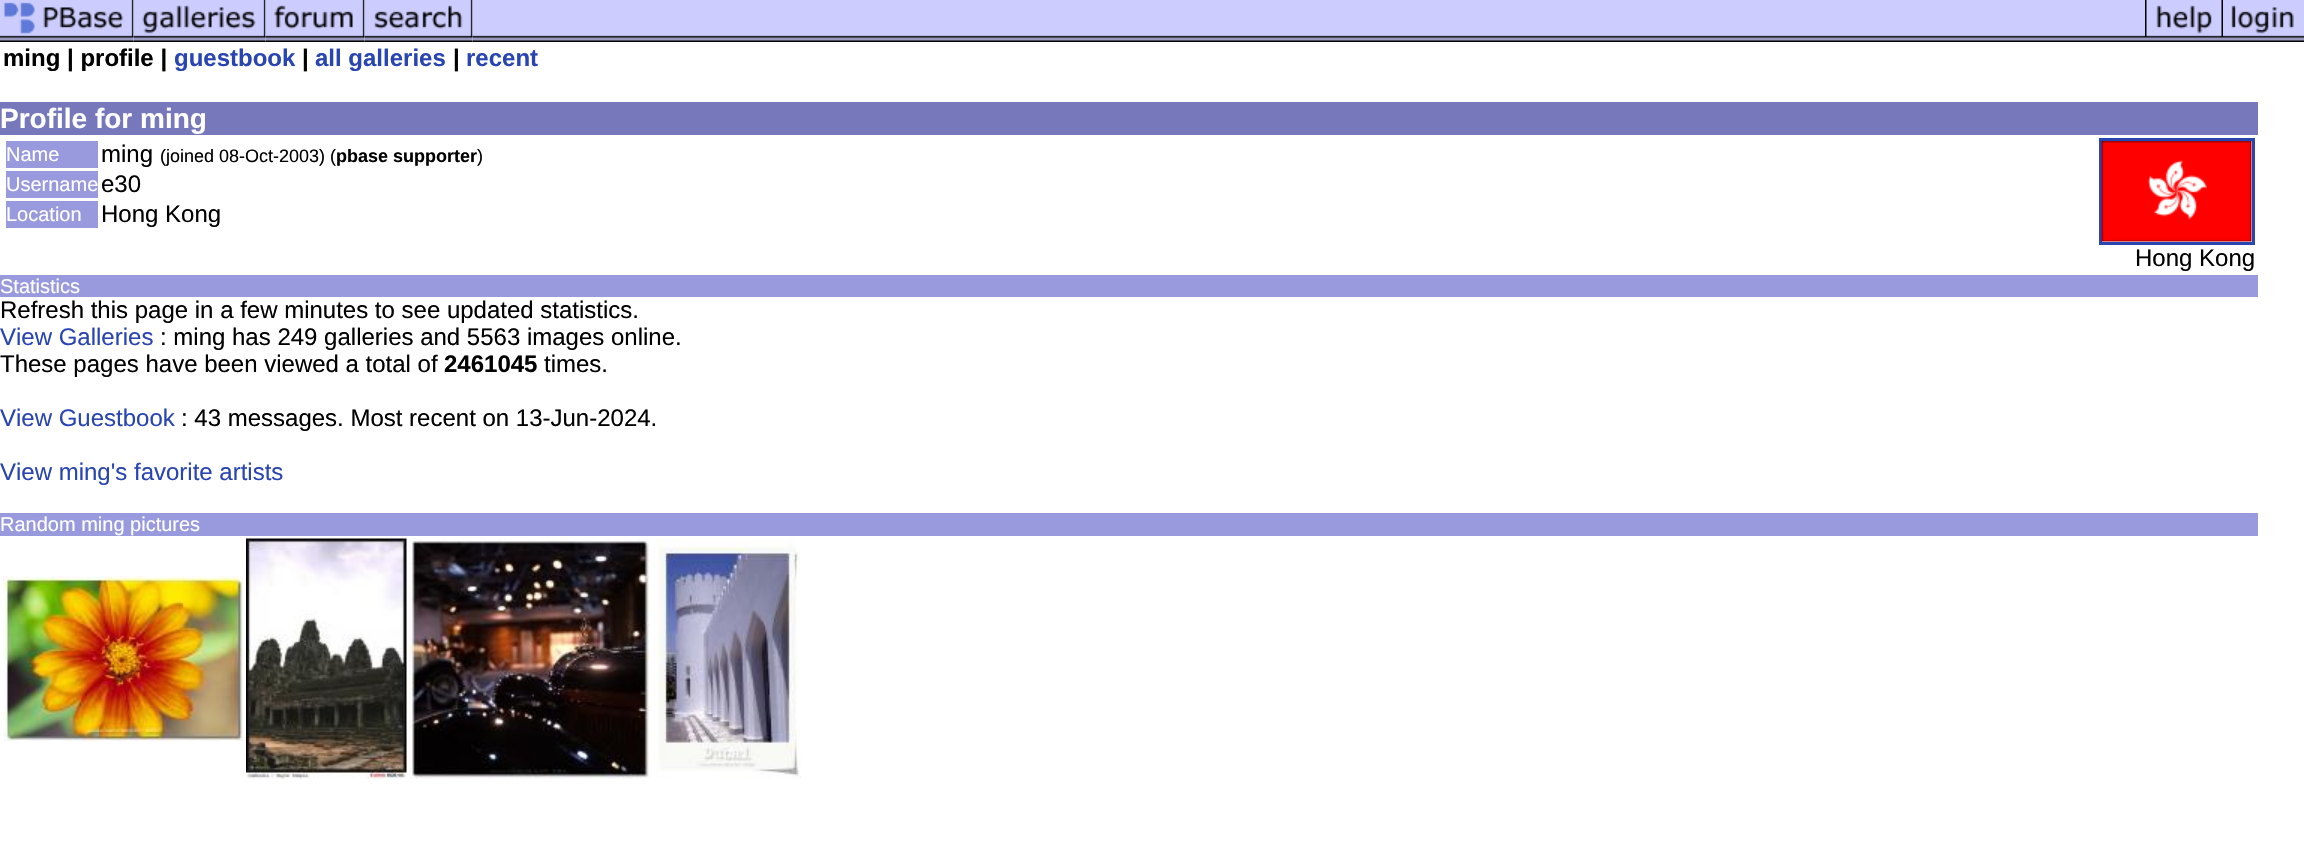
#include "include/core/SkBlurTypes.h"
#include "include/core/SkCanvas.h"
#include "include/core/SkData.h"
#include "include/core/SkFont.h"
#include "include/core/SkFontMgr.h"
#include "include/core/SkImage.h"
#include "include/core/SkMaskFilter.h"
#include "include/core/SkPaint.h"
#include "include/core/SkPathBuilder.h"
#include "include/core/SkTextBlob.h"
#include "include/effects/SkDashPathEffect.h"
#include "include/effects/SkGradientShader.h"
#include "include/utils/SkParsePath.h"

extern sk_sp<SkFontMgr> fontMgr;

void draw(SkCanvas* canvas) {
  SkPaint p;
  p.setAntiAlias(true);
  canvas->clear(SK_ColorWHITE);
  canvas->drawImageRect(SkImages::DeferredFromEncodedData(SkData::MakeFromFileName("images/1.png")), SkRect::MakeLTRB(0, 0, 134, 42), SkSamplingOptions());
  canvas->drawImageRect(SkImages::DeferredFromEncodedData(SkData::MakeFromFileName("images/2.png")), SkRect::MakeLTRB(133, 0, 266, 42), SkSamplingOptions());
  canvas->drawImageRect(SkImages::DeferredFromEncodedData(SkData::MakeFromFileName("images/3.png")), SkRect::MakeLTRB(265, 0, 365, 42), SkSamplingOptions());
  canvas->drawImageRect(SkImages::DeferredFromEncodedData(SkData::MakeFromFileName("images/4.png")), SkRect::MakeLTRB(364, 0, 473, 42), SkSamplingOptions());
  canvas->drawImageRect(SkImages::DeferredFromEncodedData(SkData::MakeFromFileName("images/5.png")), SkRect::MakeLTRB(472, 0, 2145, 42), SkSamplingOptions());
  canvas->drawImageRect(SkImages::DeferredFromEncodedData(SkData::MakeFromFileName("images/6.png")), SkRect::MakeLTRB(2145, 0, 2223, 42), SkSamplingOptions());
  canvas->drawImageRect(SkImages::DeferredFromEncodedData(SkData::MakeFromFileName("images/7.png")), SkRect::MakeLTRB(2223, 0, 2304, 42), SkSamplingOptions());
  p.setColor(SkColorSetRGB(119, 119, 187));
  canvas->drawRect(SkRect::MakeLTRB(0, 102, 2258, 135), p);
  p.setColor(SkColorSetRGB(153, 153, 221));
  canvas->drawRect(SkRect::MakeLTRB(6, 141, 98, 168), p);
  canvas->drawRect(SkRect::MakeLTRB(6, 171, 98, 198), p);
  canvas->drawRect(SkRect::MakeLTRB(6, 201, 98, 228), p);
  p.setStyle(SkPaint::kStroke_Style);
  p.setStrokeWidth(3);
  p.setColor(SkColorSetRGB(40, 69, 177));
  canvas->drawRect(SkRect::MakeLTRB(2100.5f, 139.5f, 2253.5f, 243.5f), p);
  canvas->drawImageRect(SkImages::DeferredFromEncodedData(SkData::MakeFromFileName("images/8.png")), SkRect::MakeLTRB(2101, 141, 2252, 242), SkSamplingOptions());
  p.setStyle(SkPaint::kFill_Style);
  p.setColor(SkColorSetRGB(153, 153, 221));
  canvas->drawRect(SkRect::MakeLTRB(0, 275, 2258, 297), p);
  canvas->drawRect(SkRect::MakeLTRB(0, 513, 2258, 536), p);
  canvas->drawImageRect(SkImages::DeferredFromEncodedData(SkData::MakeFromFileName("images/9.png")), SkRect::MakeLTRB(3, 576, 243, 741), SkSamplingOptions());
  canvas->drawImageRect(SkImages::DeferredFromEncodedData(SkData::MakeFromFileName("images/10.png")), SkRect::MakeLTRB(246, 538, 407, 779), SkSamplingOptions());
  canvas->drawImageRect(SkImages::DeferredFromEncodedData(SkData::MakeFromFileName("images/11.png")), SkRect::MakeLTRB(409, 538, 650, 779), SkSamplingOptions());
  canvas->drawImageRect(SkImages::DeferredFromEncodedData(SkData::MakeFromFileName("images/12.png")), SkRect::MakeLTRB(653, 538, 802, 779), SkSamplingOptions());
  SkFont font1(fontMgr->matchFamilyStyle("Liberation Sans", SkFontStyle::Bold()), 24);
  font1.setSubpixel(true);
  p.setColor(SK_ColorBLACK);
  canvas->drawString("ming | profile |", 3, 66, font1, p);
  p.setColor(SkColorSetRGB(40, 69, 177));
  canvas->drawString("guestbook", 174, 66, font1, p);
  p.setColor(SK_ColorBLACK);
  canvas->drawString("|", 302, 66, font1, p);
  p.setColor(SkColorSetRGB(40, 69, 177));
  canvas->drawString("all galleries", 315, 66, font1, p);
  p.setColor(SK_ColorBLACK);
  canvas->drawString("|", 453, 66, font1, p);
  p.setColor(SkColorSetRGB(40, 69, 177));
  canvas->drawString("recent", 466, 66, font1, p);
  SkFont font2(fontMgr->matchFamilyStyle("Liberation Sans", SkFontStyle::Bold()), 28);
  font2.setSubpixel(true);
  p.setColor(SK_ColorWHITE);
  canvas->drawString("Profile for ming", 0, 128, font2, p);
  SkFont font3(fontMgr->matchFamilyStyle("Liberation Sans", SkFontStyle::Normal()), 20);
  font3.setSubpixel(true);
  canvas->drawString("Name", 6, 161, font3, p);
  SkFont font4(fontMgr->matchFamilyStyle("Liberation Sans", SkFontStyle::Normal()), 24);
  font4.setSubpixel(true);
  p.setColor(SK_ColorBLACK);
  canvas->drawString("ming", 101, 162, font4, p);
  SkFont font5(fontMgr->matchFamilyStyle("Liberation Sans", SkFontStyle::Normal()), 18);
  font5.setSubpixel(true);
  canvas->drawString("(joined 08-Oct-2003) (", 160, 162, font5, p);
  SkFont font6(fontMgr->matchFamilyStyle("Liberation Sans", SkFontStyle::Bold()), 18);
  font6.setSubpixel(true);
  canvas->drawString("pbase supporter", 336, 162, font6, p);
  canvas->drawString(")", 477, 162, font5, p);
  p.setColor(SK_ColorWHITE);
  canvas->drawString("Username", 6, 191, font3, p);
  p.setColor(SK_ColorBLACK);
  canvas->drawString("e30", 101, 192, font4, p);
  p.setColor(SK_ColorWHITE);
  canvas->drawString("Location", 6, 221, font3, p);
  p.setColor(SK_ColorBLACK);
  canvas->drawString("Hong Kong", 101, 222, font4, p);
  canvas->drawString("Hong Kong", 2135, 266, font4, p);
  p.setColor(SK_ColorWHITE);
  canvas->drawString("Statistics", 0, 293, font3, p);
  p.setColor(SK_ColorBLACK);
  canvas->drawString("Refresh this page in a few minutes to see updated statistics.", 0, 318, font4, p);
  p.setColor(SkColorSetRGB(40, 69, 177));
  canvas->drawString("View Galleries", 0, 345, font4, p);
  p.setColor(SK_ColorBLACK);
  canvas->drawString(": ming has 249 galleries and 5563 images online.", 160, 345, font4, p);
  canvas->drawString("These pages have been viewed a total of", 0, 372, font4, p);
  canvas->drawString("2461045", 444, 372, font1, p);
  canvas->drawString("times.", 544, 372, font4, p);
  p.setColor(SkColorSetRGB(40, 69, 177));
  canvas->drawString("View Guestbook", 0, 426, font4, p);
  p.setColor(SK_ColorBLACK);
  canvas->drawString(": 43 messages. Most recent on 13-Jun-2024.", 181, 426, font4, p);
  p.setColor(SkColorSetRGB(40, 69, 177));
  canvas->drawString("View ming's favorite artists", 0, 480, font4, p);
  p.setColor(SK_ColorWHITE);
  canvas->drawString("Random ming pictures", 0, 531, font3, p);
}
